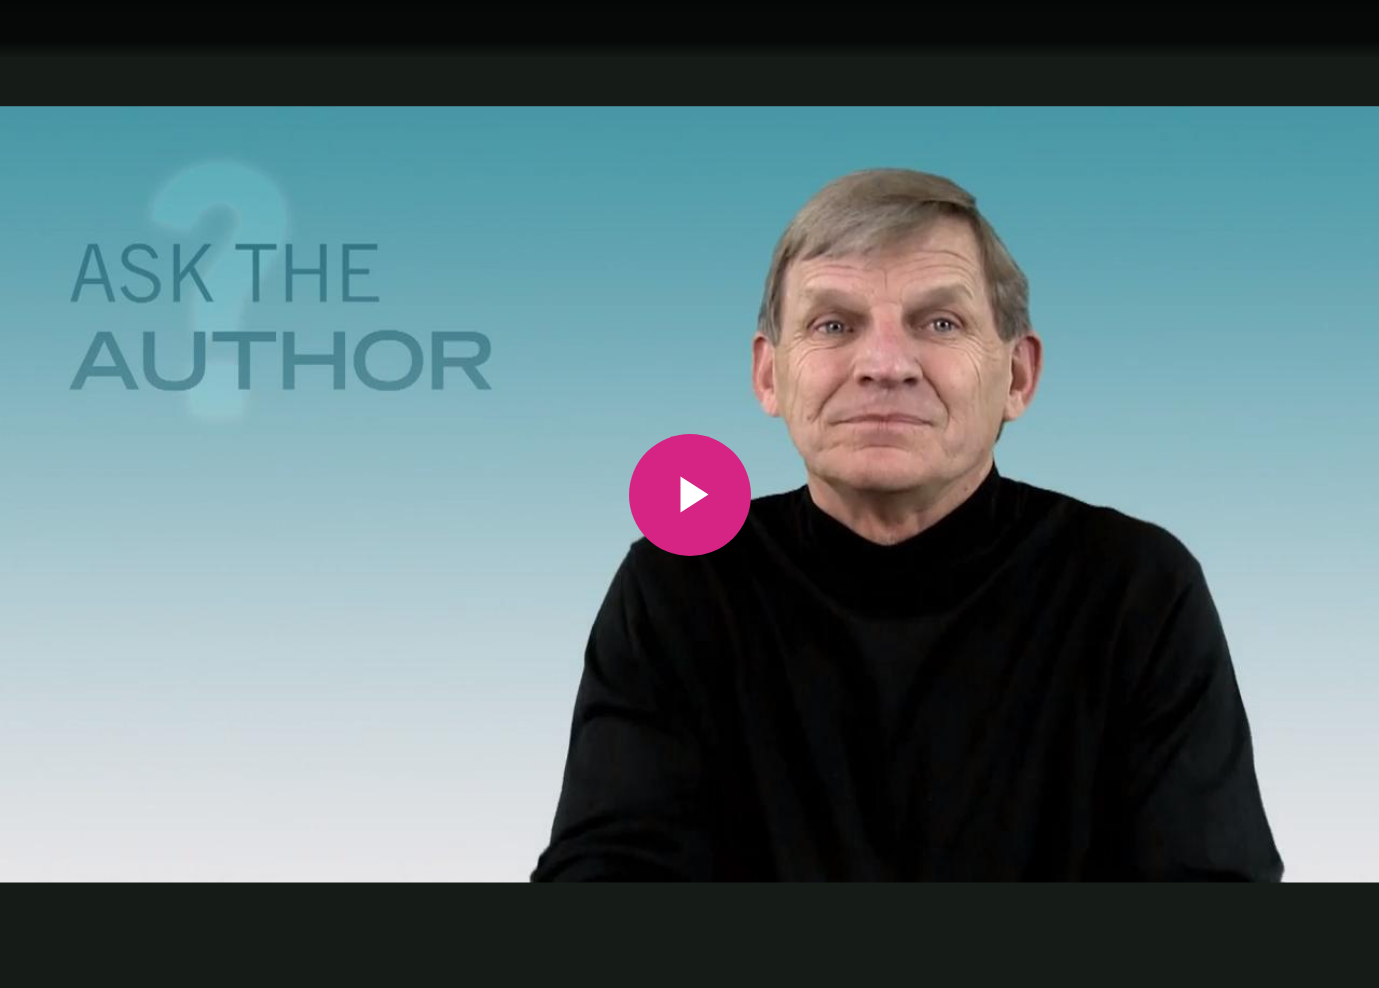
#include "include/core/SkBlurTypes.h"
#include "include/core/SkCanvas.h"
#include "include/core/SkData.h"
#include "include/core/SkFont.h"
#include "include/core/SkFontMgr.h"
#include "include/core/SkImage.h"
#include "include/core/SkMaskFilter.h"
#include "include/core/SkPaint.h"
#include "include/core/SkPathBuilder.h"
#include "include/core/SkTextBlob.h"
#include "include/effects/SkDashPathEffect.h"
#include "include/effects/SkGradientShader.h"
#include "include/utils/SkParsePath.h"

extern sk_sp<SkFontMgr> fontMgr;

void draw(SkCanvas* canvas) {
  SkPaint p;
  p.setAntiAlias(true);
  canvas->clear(SkColorSetRGB(21, 27, 23));
  {
    const SkColor colors[] = {SkColorSetRGB(4, 5, 5), SkColorSetRGB(6, 8, 7), SkColorSetRGB(6, 8, 7), SkColorSetRGB(21, 27, 23)};
    const float stops[] = {0, 0.3f, 0.7f, 1};
    const SkPoint ends[] = {{690, 0}, {690, 59}};
    p.setShader(SkGradientShader::MakeLinear(ends, colors, stops, 4, SkTileMode::kClamp));
    p.setAlpha(255);
  }
  canvas->drawRect(SkRect::MakeLTRB(0, 0, 1379, 57), p);
  canvas->drawImageRect(SkImages::DeferredFromEncodedData(SkData::MakeFromFileName("images/1.png")), SkRect::MakeLTRB(0, 106, 1379, 883), SkSamplingOptions());
  p.setShader(nullptr);
  p.setColor(SkColorSetRGB(213, 36, 132));
  canvas->drawCircle(690, 495, 61, p);
  p.setColor(SK_ColorWHITE);
  canvas->drawPath(SkPathBuilder().moveTo(680.5f, 476.5f).lineTo(680.5f, 512.5f).lineTo(708.5f, 494.5f).close().detach(), p);
}
